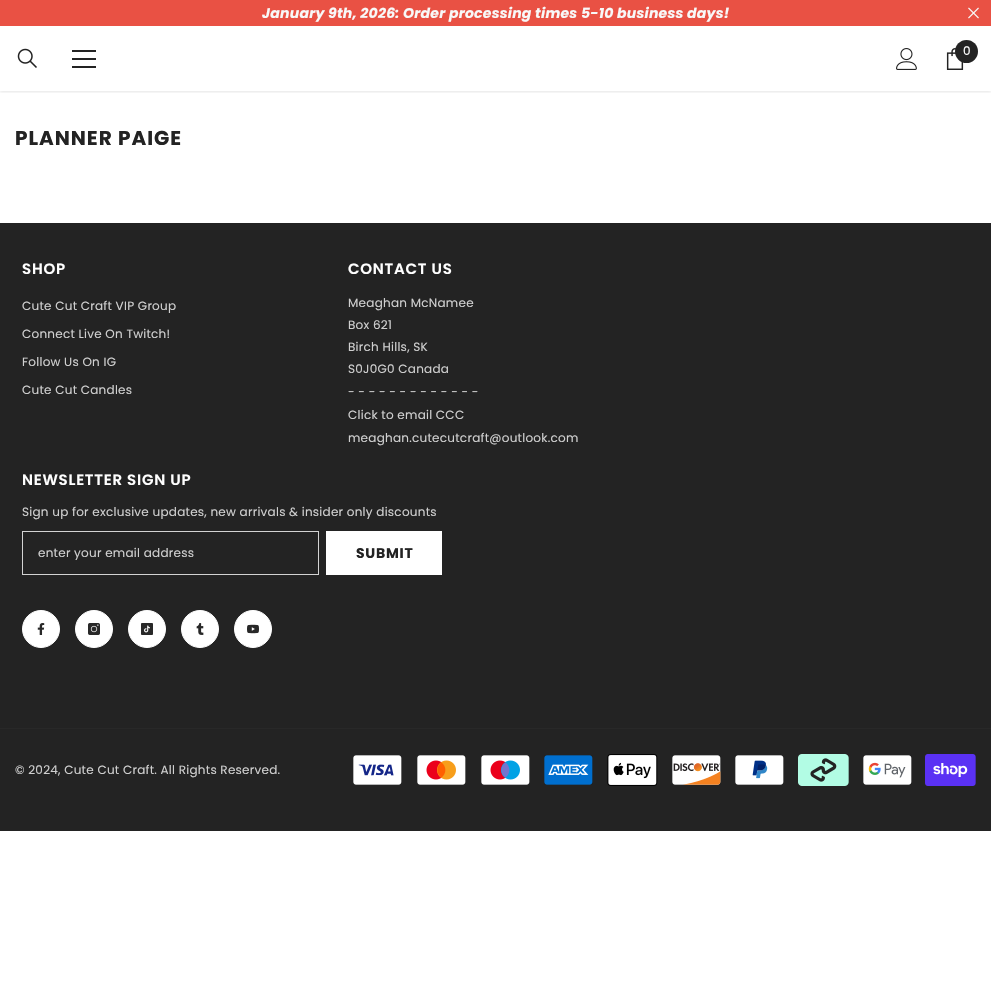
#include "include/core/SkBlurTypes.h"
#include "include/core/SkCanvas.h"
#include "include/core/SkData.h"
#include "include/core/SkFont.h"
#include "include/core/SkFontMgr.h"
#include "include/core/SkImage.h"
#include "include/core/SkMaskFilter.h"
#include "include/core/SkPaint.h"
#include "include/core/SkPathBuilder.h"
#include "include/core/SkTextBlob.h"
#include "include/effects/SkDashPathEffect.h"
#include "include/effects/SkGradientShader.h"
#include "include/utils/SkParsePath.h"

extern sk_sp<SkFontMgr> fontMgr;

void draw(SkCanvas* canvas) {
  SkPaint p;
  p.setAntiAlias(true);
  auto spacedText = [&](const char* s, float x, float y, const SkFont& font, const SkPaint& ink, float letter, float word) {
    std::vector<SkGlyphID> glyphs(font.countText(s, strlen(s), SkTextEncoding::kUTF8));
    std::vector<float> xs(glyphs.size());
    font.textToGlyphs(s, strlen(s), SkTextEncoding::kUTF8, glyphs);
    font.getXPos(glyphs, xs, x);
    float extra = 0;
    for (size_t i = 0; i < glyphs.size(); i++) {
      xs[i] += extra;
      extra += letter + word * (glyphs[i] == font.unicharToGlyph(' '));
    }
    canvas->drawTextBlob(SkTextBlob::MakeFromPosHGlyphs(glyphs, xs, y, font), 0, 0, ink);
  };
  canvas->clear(SK_ColorWHITE);
  p.setColor(SkColorSetRGB(233, 81, 68));
  canvas->drawRect(SkRect::MakeLTRB(0, 0, 991, 26), p);
  canvas->drawImageRect(SkImages::DeferredFromEncodedData(SkData::MakeFromFileName("images/1.png")), SkRect::MakeLTRB(968, 7, 979, 19), SkSamplingOptions());
  canvas->save();
  canvas->clipRect(SkRect::MakeLTRB(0, 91, 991, 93));
  p.setColor(SkColorSetARGB(26, 0, 0, 0));
  p.setMaskFilter(SkMaskFilter::MakeBlur(kNormal_SkBlurStyle, 1.5f));
  canvas->drawRect(SkRect::MakeLTRB(0, 27, 991, 92), p);
  p.setMaskFilter(nullptr);
  canvas->restore();
  canvas->drawImageRect(SkImages::DeferredFromEncodedData(SkData::MakeFromFileName("images/2.png")), SkRect::MakeLTRB(17, 48, 37, 68), SkSamplingOptions());
  p.setColor(SkColorSetRGB(35, 35, 35));
  canvas->drawRect(SkRect::MakeLTRB(72, 58, 96, 60), p);
  canvas->drawRect(SkRect::MakeLTRB(72, 50, 96, 52), p);
  canvas->drawRect(SkRect::MakeLTRB(72, 66, 96, 68), p);
  canvas->drawImageRect(SkImages::DeferredFromEncodedData(SkData::MakeFromFileName("images/3.png")), SkRect::MakeLTRB(896, 48, 917, 70), SkSamplingOptions());
  canvas->drawImageRect(SkImages::DeferredFromEncodedData(SkData::MakeFromFileName("images/4.png")), SkRect::MakeLTRB(946, 48, 964, 70), SkSamplingOptions());
  canvas->drawCircle(966.5f, 51.5f, 11.5f, p);
  canvas->drawRect(SkRect::MakeLTRB(0, 223, 991, 728), p);
  p.setStyle(SkPaint::kStroke_Style);
  p.setStrokeWidth(1);
  p.setColor(SkColorSetRGB(211, 211, 211));
  canvas->drawRect(SkRect::MakeLTRB(22.5f, 531.5f, 318.5f, 574.5f), p);
  p.setStyle(SkPaint::kFill_Style);
  p.setColor(SK_ColorWHITE);
  canvas->drawRect(SkRect::MakeLTRB(326, 531, 442, 575), p);
  canvas->drawCircle(41, 629, 18.5f, p);
  p.setStyle(SkPaint::kStroke_Style);
  canvas->drawCircle(41, 629, 18.5f, p);
  canvas->drawImageRect(SkImages::DeferredFromEncodedData(SkData::MakeFromFileName("images/5.png")), SkRect::MakeLTRB(37, 623, 45, 635), SkSamplingOptions());
  p.setStyle(SkPaint::kFill_Style);
  canvas->drawCircle(94, 629, 18.5f, p);
  p.setStyle(SkPaint::kStroke_Style);
  canvas->drawCircle(94, 629, 18.5f, p);
  canvas->drawImageRect(SkImages::DeferredFromEncodedData(SkData::MakeFromFileName("images/6.png")), SkRect::MakeLTRB(88, 623, 100, 635), SkSamplingOptions());
  p.setStyle(SkPaint::kFill_Style);
  canvas->drawCircle(147, 629, 18.5f, p);
  p.setStyle(SkPaint::kStroke_Style);
  canvas->drawCircle(147, 629, 18.5f, p);
  canvas->drawImageRect(SkImages::DeferredFromEncodedData(SkData::MakeFromFileName("images/7.png")), SkRect::MakeLTRB(141, 623, 153, 635), SkSamplingOptions());
  p.setStyle(SkPaint::kFill_Style);
  canvas->drawCircle(200, 629, 18.5f, p);
  p.setStyle(SkPaint::kStroke_Style);
  canvas->drawCircle(200, 629, 18.5f, p);
  canvas->drawImageRect(SkImages::DeferredFromEncodedData(SkData::MakeFromFileName("images/8.png")), SkRect::MakeLTRB(196, 623, 204, 635), SkSamplingOptions());
  p.setStyle(SkPaint::kFill_Style);
  canvas->drawCircle(253, 629, 18.5f, p);
  p.setStyle(SkPaint::kStroke_Style);
  canvas->drawCircle(253, 629, 18.5f, p);
  canvas->drawImageRect(SkImages::DeferredFromEncodedData(SkData::MakeFromFileName("images/9.png")), SkRect::MakeLTRB(247, 624, 259, 634), SkSamplingOptions());
  p.setStyle(SkPaint::kFill_Style);
  p.setColor(SkColorSetRGB(35, 35, 35));
  canvas->drawRect(SkRect::MakeLTRB(0, 729, 991, 831), p);
  p.setColor(SkColorSetRGB(40, 40, 40));
  canvas->drawRect(SkRect::MakeLTRB(0, 728, 991, 729), p);
  canvas->drawImageRect(SkImages::DeferredFromEncodedData(SkData::MakeFromFileName("images/10.png")), SkRect::MakeLTRB(353, 755, 402, 785), SkSamplingOptions());
  canvas->drawImageRect(SkImages::DeferredFromEncodedData(SkData::MakeFromFileName("images/11.png")), SkRect::MakeLTRB(417, 755, 466, 785), SkSamplingOptions());
  canvas->drawImageRect(SkImages::DeferredFromEncodedData(SkData::MakeFromFileName("images/12.png")), SkRect::MakeLTRB(481, 755, 530, 785), SkSamplingOptions());
  canvas->drawImageRect(SkImages::DeferredFromEncodedData(SkData::MakeFromFileName("images/13.png")), SkRect::MakeLTRB(544, 755, 593, 785), SkSamplingOptions());
  canvas->drawImageRect(SkImages::DeferredFromEncodedData(SkData::MakeFromFileName("images/14.png")), SkRect::MakeLTRB(607, 754, 658, 786), SkSamplingOptions());
  canvas->drawImageRect(SkImages::DeferredFromEncodedData(SkData::MakeFromFileName("images/15.png")), SkRect::MakeLTRB(672, 755, 721, 785), SkSamplingOptions());
  canvas->drawImageRect(SkImages::DeferredFromEncodedData(SkData::MakeFromFileName("images/16.png")), SkRect::MakeLTRB(735, 755, 784, 785), SkSamplingOptions());
  canvas->drawImageRect(SkImages::DeferredFromEncodedData(SkData::MakeFromFileName("images/17.png")), SkRect::MakeLTRB(798, 754, 849, 786), SkSamplingOptions());
  canvas->drawImageRect(SkImages::DeferredFromEncodedData(SkData::MakeFromFileName("images/18.png")), SkRect::MakeLTRB(863, 755, 912, 785), SkSamplingOptions());
  canvas->drawImageRect(SkImages::DeferredFromEncodedData(SkData::MakeFromFileName("images/19.png")), SkRect::MakeLTRB(925, 754, 976, 786), SkSamplingOptions());
  SkFont font1(fontMgr->matchFamilyStyle("Poppins", SkFontStyle::BoldItalic()), 14);
  font1.setSubpixel(true);
  p.setColor(SkColorSetRGB(248, 248, 248));
  spacedText("January 9th, 2026: Order processing times 5-10 business days!", 262, 18, font1, p, 0.25f, 0);
  SkFont font2(fontMgr->matchFamilyStyle("Poppins", SkFontStyle::Normal()), 12);
  font2.setSubpixel(true);
  p.setColor(SK_ColorWHITE);
  canvas->drawString("0", 963, 55, font2, p);
  SkFont font3(fontMgr->matchFamilyStyle("Poppins", SkFontStyle::Bold()), 20);
  font3.setSubpixel(true);
  p.setColor(SkColorSetRGB(35, 35, 35));
  spacedText("PLANNER PAIGE", 15, 145, font3, p, 1, 0);
  SkFont font4(fontMgr->matchFamilyStyle("Poppins", SkFontStyle(600, SkFontStyle::kNormal_Width, SkFontStyle::kUpright_Slant)), 15);
  font4.setSubpixel(true);
  p.setColor(SK_ColorWHITE);
  spacedText("SHOP", 22, 274, font4, p, 0.75f, 0);
  p.setColor(SkColorSetRGB(207, 207, 207));
  spacedText("Cute Cut Craft VIP Group", 22, 310, font2, p, 0.25f, 0);
  spacedText("Connect Live On Twitch!", 22, 338, font2, p, 0.25f, 0);
  spacedText("Follow Us On IG", 22, 366, font2, p, 0.25f, 0);
  spacedText("Cute Cut Candles", 22, 394, font2, p, 0.25f, 0);
  p.setColor(SK_ColorWHITE);
  spacedText("CONTACT US", 348, 274, font4, p, 0.75f, 0);
  p.setColor(SkColorSetRGB(207, 207, 207));
  spacedText("Meaghan McNamee", 348, 307, font2, p, 0.25f, 0);
  spacedText("Box 621", 348, 329, font2, p, 0.25f, 0);
  spacedText("Birch Hills, SK", 348, 351, font2, p, 0.25f, 0);
  spacedText("S0J0G0 Canada", 348, 373, font2, p, 0.25f, 0);
  spacedText("- - - - - - - - - - - - -", 348, 396, font2, p, 0.25f, 0);
  spacedText("Click to email CCC", 348, 419, font2, p, 0.25f, 0);
  spacedText("meaghan.cutecutcraft@outlook.com", 348, 442, font2, p, 0.25f, 0);
  p.setColor(SK_ColorWHITE);
  spacedText("NEWSLETTER SIGN UP", 22, 485, font4, p, 0.75f, 0);
  p.setColor(SkColorSetRGB(207, 207, 207));
  spacedText("Sign up for exclusive updates, new arrivals & insider only discounts", 22, 516, font2, p, 0.25f, 0);
  spacedText("enter your email address", 38, 557, font2, p, 0.25f, 0);
  SkFont font5(fontMgr->matchFamilyStyle("Poppins", SkFontStyle::Bold()), 14);
  font5.setSubpixel(true);
  p.setColor(SkColorSetRGB(35, 35, 35));
  spacedText("SUBMIT", 356, 558, font5, p, 0.75f, 0);
  p.setColor(SkColorSetRGB(207, 207, 207));
  spacedText("© 2024, Cute Cut Craft. All Rights Reserved.", 15, 774, font2, p, 0.25f, 0);
}
